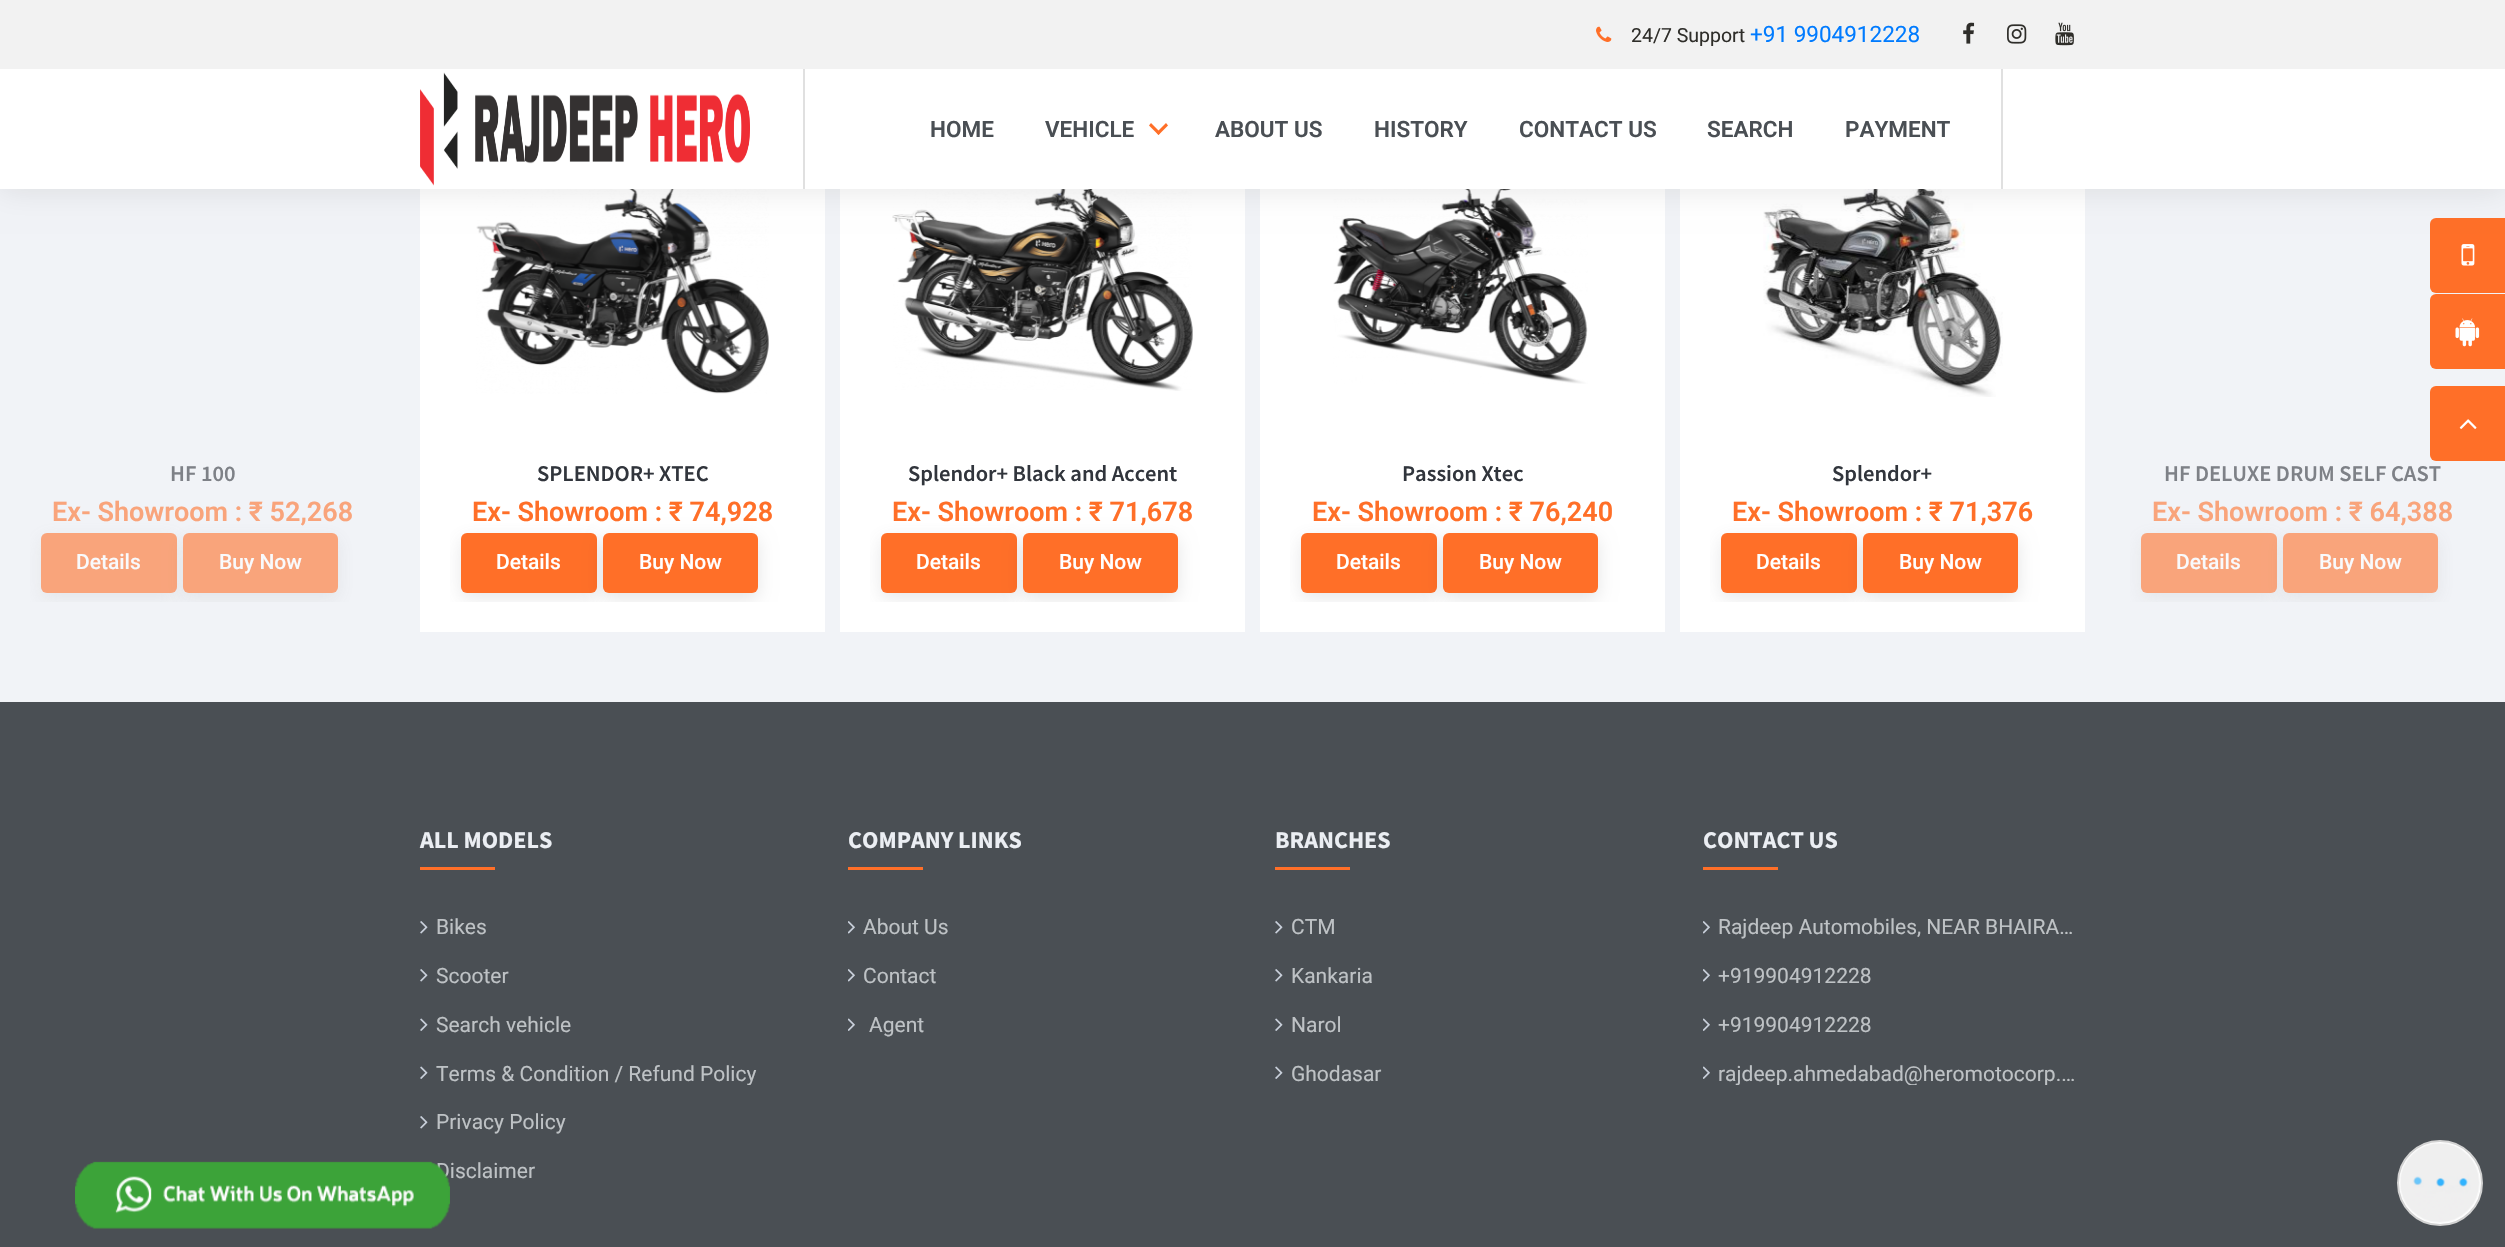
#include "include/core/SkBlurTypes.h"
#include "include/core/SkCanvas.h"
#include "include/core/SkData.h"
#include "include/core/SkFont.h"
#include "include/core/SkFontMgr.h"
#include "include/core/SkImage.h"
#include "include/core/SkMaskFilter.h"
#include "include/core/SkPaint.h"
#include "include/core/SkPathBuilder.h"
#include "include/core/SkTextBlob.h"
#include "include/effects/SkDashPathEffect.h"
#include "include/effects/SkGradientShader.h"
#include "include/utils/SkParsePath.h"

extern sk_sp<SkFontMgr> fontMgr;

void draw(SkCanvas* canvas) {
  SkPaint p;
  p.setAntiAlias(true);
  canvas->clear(SkColorSetRGB(74, 79, 84));
  p.setColor(SkColorSetRGB(241, 243, 247));
  canvas->drawRect(SkRect::MakeLTRB(0, 189, 2505, 702), p);
  p.setColor(SkColorSetRGB(255, 111, 40));
  canvas->drawRoundRect(SkRect::MakeLTRB(2430, 218, 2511, 293), 6, 6, p);
  p.setColor(SK_ColorWHITE);
  canvas->drawRect(SkRect::MakeLTRB(420, 189, 825, 632), p);
  canvas->drawImageRect(SkImages::DeferredFromEncodedData(SkData::MakeFromFileName("images/9.png")), SkRect::MakeLTRB(476, 189, 769, 394), SkSamplingOptions());
  canvas->drawRect(SkRect::MakeLTRB(840, 189, 1245, 632), p);
  canvas->drawImageRect(SkImages::DeferredFromEncodedData(SkData::MakeFromFileName("images/10.png")), SkRect::MakeLTRB(892, 189, 1193, 391), SkSamplingOptions());
  canvas->drawRect(SkRect::MakeLTRB(1260, 189, 1665, 632), p);
  canvas->drawImageRect(SkImages::DeferredFromEncodedData(SkData::MakeFromFileName("images/11.png")), SkRect::MakeLTRB(1333, 189, 1588, 384), SkSamplingOptions());
  canvas->drawRect(SkRect::MakeLTRB(1680, 189, 2085, 632), p);
  canvas->drawImageRect(SkImages::DeferredFromEncodedData(SkData::MakeFromFileName("images/12.png")), SkRect::MakeLTRB(1763, 189, 2003, 397), SkSamplingOptions());
  p.setColor(SkColorSetARGB(26, 0, 0, 0));
  p.setMaskFilter(SkMaskFilter::MakeBlur(kNormal_SkBlurStyle, 15));
  canvas->drawRect(SkRect::MakeLTRB(0, 0, 2505, 189), p);
  p.setMaskFilter(nullptr);
  p.setColor(SK_ColorWHITE);
  canvas->drawRect(SkRect::MakeLTRB(0, 69, 2505, 189), p);
  p.setColor(SkColorSetRGB(242, 242, 242));
  canvas->drawRect(SkRect::MakeLTRB(0, 0, 2505, 69), p);
  canvas->drawImageRect(SkImages::DeferredFromEncodedData(SkData::MakeFromFileName("images/1.png")), SkRect::MakeLTRB(1596, 26, 1612, 42), SkSamplingOptions());
  canvas->drawImageRect(SkImages::DeferredFromEncodedData(SkData::MakeFromFileName("images/2.png")), SkRect::MakeLTRB(1963, 22, 1975, 44), SkSamplingOptions());
  canvas->drawImageRect(SkImages::DeferredFromEncodedData(SkData::MakeFromFileName("images/3.png")), SkRect::MakeLTRB(2007, 24, 2027, 44), SkSamplingOptions());
  canvas->drawImageRect(SkImages::DeferredFromEncodedData(SkData::MakeFromFileName("images/4.png")), SkRect::MakeLTRB(2055, 22, 2074, 46), SkSamplingOptions());
  p.setColor(SkColorSetRGB(224, 224, 224));
  canvas->drawRect(SkRect::MakeLTRB(803, 69, 805, 189), p);
  canvas->drawImageRect(SkImages::DeferredFromEncodedData(SkData::MakeFromFileName("images/5.png")), SkRect::MakeLTRB(420, 72, 750, 186), SkSamplingOptions());
  p.setColor(SkColorSetRGB(255, 111, 40));
  canvas->drawPath(SkPathBuilder().moveTo(1151, 123).lineTo(1160.5f, 132.5f).lineTo(1158.5f, 135).lineTo(1149, 125.5f).close().detach(), p);
  canvas->drawPath(SkPathBuilder().moveTo(1156.5f, 132.5f).lineTo(1166, 123).lineTo(1168, 125.5f).lineTo(1158.5f, 135).close().detach(), p);
  p.setColor(SkColorSetRGB(224, 224, 224));
  canvas->drawRect(SkRect::MakeLTRB(2001, 69, 2003, 189), p);
  canvas->drawImageRect(SkImages::DeferredFromEncodedData(SkData::MakeFromFileName("images/6.png")), SkRect::MakeLTRB(2461, 244, 2475, 266), SkSamplingOptions());
  p.setColor(SkColorSetRGB(255, 111, 40));
  canvas->drawRoundRect(SkRect::MakeLTRB(2430, 294, 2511, 369), 6, 6, p);
  canvas->drawImageRect(SkImages::DeferredFromEncodedData(SkData::MakeFromFileName("images/7.png")), SkRect::MakeLTRB(2455, 318, 2480, 347), SkSamplingOptions());
  canvas->drawRoundRect(SkRect::MakeLTRB(2430, 386, 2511, 461), 6, 6, p);
  canvas->drawImageRect(SkImages::DeferredFromEncodedData(SkData::MakeFromFileName("images/8.png")), SkRect::MakeLTRB(2459, 419, 2477, 429), SkSamplingOptions());
  canvas->save();
  canvas->clipRect(SkRect::MakeLTRB(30, 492, 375, 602));
  p.setColor(SkColorSetARGB(38, 158, 159, 163));
  p.setMaskFilter(SkMaskFilter::MakeBlur(kNormal_SkBlurStyle, 9));
  canvas->drawRoundRect(SkRect::MakeLTRB(41, 539, 177, 599), 6, 6, p);
  p.setMaskFilter(nullptr);
  canvas->restore();
  p.setColor(SkColorSetRGB(249, 164, 123));
  canvas->drawRoundRect(SkRect::MakeLTRB(41, 533, 177, 593), 6, 6, p);
  canvas->save();
  canvas->clipRect(SkRect::MakeLTRB(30, 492, 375, 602));
  p.setColor(SkColorSetARGB(26, 96, 97, 99));
  p.setMaskFilter(SkMaskFilter::MakeBlur(kNormal_SkBlurStyle, 9));
  canvas->drawRoundRect(SkRect::MakeLTRB(183, 539, 338, 599), 6, 6, p);
  p.setMaskFilter(nullptr);
  canvas->restore();
  p.setColor(SkColorSetRGB(249, 164, 123));
  canvas->drawRoundRect(SkRect::MakeLTRB(183, 533, 338, 593), 6, 6, p);
  canvas->save();
  canvas->clipRect(SkRect::MakeLTRB(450, 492, 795, 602));
  p.setColor(SkColorSetARGB(38, 102, 103, 107));
  p.setMaskFilter(SkMaskFilter::MakeBlur(kNormal_SkBlurStyle, 9));
  canvas->drawRoundRect(SkRect::MakeLTRB(461, 539, 597, 599), 6, 6, p);
  p.setMaskFilter(nullptr);
  canvas->restore();
  p.setColor(SkColorSetRGB(255, 111, 40));
  canvas->drawRoundRect(SkRect::MakeLTRB(461, 533, 597, 593), 6, 6, p);
  canvas->save();
  canvas->clipRect(SkRect::MakeLTRB(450, 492, 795, 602));
  p.setColor(SkColorSetARGB(26, 0, 0, 0));
  p.setMaskFilter(SkMaskFilter::MakeBlur(kNormal_SkBlurStyle, 9));
  canvas->drawRoundRect(SkRect::MakeLTRB(603, 539, 758, 599), 6, 6, p);
  p.setMaskFilter(nullptr);
  canvas->restore();
  p.setColor(SkColorSetRGB(255, 111, 40));
  canvas->drawRoundRect(SkRect::MakeLTRB(603, 533, 758, 593), 6, 6, p);
  canvas->save();
  canvas->clipRect(SkRect::MakeLTRB(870, 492, 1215, 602));
  p.setColor(SkColorSetARGB(38, 102, 103, 107));
  p.setMaskFilter(SkMaskFilter::MakeBlur(kNormal_SkBlurStyle, 9));
  canvas->drawRoundRect(SkRect::MakeLTRB(881, 539, 1017, 599), 6, 6, p);
  p.setMaskFilter(nullptr);
  canvas->restore();
  p.setColor(SkColorSetRGB(255, 111, 40));
  canvas->drawRoundRect(SkRect::MakeLTRB(881, 533, 1017, 593), 6, 6, p);
  canvas->save();
  canvas->clipRect(SkRect::MakeLTRB(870, 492, 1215, 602));
  p.setColor(SkColorSetARGB(26, 0, 0, 0));
  p.setMaskFilter(SkMaskFilter::MakeBlur(kNormal_SkBlurStyle, 9));
  canvas->drawRoundRect(SkRect::MakeLTRB(1023, 539, 1178, 599), 6, 6, p);
  p.setMaskFilter(nullptr);
  canvas->restore();
  p.setColor(SkColorSetRGB(255, 111, 40));
  canvas->drawRoundRect(SkRect::MakeLTRB(1023, 533, 1178, 593), 6, 6, p);
  canvas->save();
  canvas->clipRect(SkRect::MakeLTRB(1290, 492, 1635, 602));
  p.setColor(SkColorSetARGB(38, 102, 103, 107));
  p.setMaskFilter(SkMaskFilter::MakeBlur(kNormal_SkBlurStyle, 9));
  canvas->drawRoundRect(SkRect::MakeLTRB(1301, 539, 1437, 599), 6, 6, p);
  p.setMaskFilter(nullptr);
  canvas->restore();
  p.setColor(SkColorSetRGB(255, 111, 40));
  canvas->drawRoundRect(SkRect::MakeLTRB(1301, 533, 1437, 593), 6, 6, p);
  canvas->save();
  canvas->clipRect(SkRect::MakeLTRB(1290, 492, 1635, 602));
  p.setColor(SkColorSetARGB(26, 0, 0, 0));
  p.setMaskFilter(SkMaskFilter::MakeBlur(kNormal_SkBlurStyle, 9));
  canvas->drawRoundRect(SkRect::MakeLTRB(1443, 539, 1598, 599), 6, 6, p);
  p.setMaskFilter(nullptr);
  canvas->restore();
  p.setColor(SkColorSetRGB(255, 111, 40));
  canvas->drawRoundRect(SkRect::MakeLTRB(1443, 533, 1598, 593), 6, 6, p);
  canvas->save();
  canvas->clipRect(SkRect::MakeLTRB(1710, 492, 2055, 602));
  p.setColor(SkColorSetARGB(38, 102, 103, 107));
  p.setMaskFilter(SkMaskFilter::MakeBlur(kNormal_SkBlurStyle, 9));
  canvas->drawRoundRect(SkRect::MakeLTRB(1721, 539, 1857, 599), 6, 6, p);
  p.setMaskFilter(nullptr);
  canvas->restore();
  p.setColor(SkColorSetRGB(255, 111, 40));
  canvas->drawRoundRect(SkRect::MakeLTRB(1721, 533, 1857, 593), 6, 6, p);
  canvas->save();
  canvas->clipRect(SkRect::MakeLTRB(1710, 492, 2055, 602));
  p.setColor(SkColorSetARGB(26, 0, 0, 0));
  p.setMaskFilter(SkMaskFilter::MakeBlur(kNormal_SkBlurStyle, 9));
  canvas->drawRoundRect(SkRect::MakeLTRB(1863, 539, 2018, 599), 6, 6, p);
  p.setMaskFilter(nullptr);
  canvas->restore();
  p.setColor(SkColorSetRGB(255, 111, 40));
  canvas->drawRoundRect(SkRect::MakeLTRB(1863, 533, 2018, 593), 6, 6, p);
  canvas->save();
  canvas->clipRect(SkRect::MakeLTRB(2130, 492, 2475, 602));
  p.setColor(SkColorSetARGB(38, 158, 159, 163));
  p.setMaskFilter(SkMaskFilter::MakeBlur(kNormal_SkBlurStyle, 9));
  canvas->drawRoundRect(SkRect::MakeLTRB(2141, 539, 2277, 599), 6, 6, p);
  p.setMaskFilter(nullptr);
  canvas->restore();
  p.setColor(SkColorSetRGB(249, 164, 123));
  canvas->drawRoundRect(SkRect::MakeLTRB(2141, 533, 2277, 593), 6, 6, p);
  canvas->save();
  canvas->clipRect(SkRect::MakeLTRB(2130, 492, 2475, 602));
  p.setColor(SkColorSetARGB(26, 96, 97, 99));
  p.setMaskFilter(SkMaskFilter::MakeBlur(kNormal_SkBlurStyle, 9));
  canvas->drawRoundRect(SkRect::MakeLTRB(2283, 539, 2438, 599), 6, 6, p);
  p.setMaskFilter(nullptr);
  canvas->restore();
  p.setColor(SkColorSetRGB(249, 164, 123));
  canvas->drawRoundRect(SkRect::MakeLTRB(2283, 533, 2438, 593), 6, 6, p);
  p.setColor(SkColorSetRGB(255, 111, 40));
  canvas->drawRect(SkRect::MakeLTRB(420, 867, 495, 870), p);
  canvas->drawImageRect(SkImages::DeferredFromEncodedData(SkData::MakeFromFileName("images/13.png")), SkRect::MakeLTRB(420, 921, 428, 934), SkSamplingOptions());
  canvas->drawImageRect(SkImages::DeferredFromEncodedData(SkData::MakeFromFileName("images/13.png")), SkRect::MakeLTRB(420, 969, 428, 982), SkSamplingOptions());
  canvas->drawImageRect(SkImages::DeferredFromEncodedData(SkData::MakeFromFileName("images/14.png")), SkRect::MakeLTRB(420, 1018, 428, 1031), SkSamplingOptions());
  canvas->drawImageRect(SkImages::DeferredFromEncodedData(SkData::MakeFromFileName("images/14.png")), SkRect::MakeLTRB(420, 1066, 428, 1079), SkSamplingOptions());
  canvas->drawImageRect(SkImages::DeferredFromEncodedData(SkData::MakeFromFileName("images/13.png")), SkRect::MakeLTRB(420, 1116, 428, 1129), SkSamplingOptions());
  canvas->drawRect(SkRect::MakeLTRB(848, 867, 923, 870), p);
  canvas->drawImageRect(SkImages::DeferredFromEncodedData(SkData::MakeFromFileName("images/15.png")), SkRect::MakeLTRB(848, 921, 855, 934), SkSamplingOptions());
  canvas->drawImageRect(SkImages::DeferredFromEncodedData(SkData::MakeFromFileName("images/15.png")), SkRect::MakeLTRB(848, 969, 855, 982), SkSamplingOptions());
  canvas->drawImageRect(SkImages::DeferredFromEncodedData(SkData::MakeFromFileName("images/16.png")), SkRect::MakeLTRB(848, 1018, 855, 1031), SkSamplingOptions());
  canvas->drawRect(SkRect::MakeLTRB(1275, 867, 1350, 870), p);
  canvas->drawImageRect(SkImages::DeferredFromEncodedData(SkData::MakeFromFileName("images/13.png")), SkRect::MakeLTRB(1275, 921, 1283, 934), SkSamplingOptions());
  canvas->drawImageRect(SkImages::DeferredFromEncodedData(SkData::MakeFromFileName("images/13.png")), SkRect::MakeLTRB(1275, 969, 1283, 982), SkSamplingOptions());
  canvas->drawImageRect(SkImages::DeferredFromEncodedData(SkData::MakeFromFileName("images/14.png")), SkRect::MakeLTRB(1275, 1018, 1283, 1031), SkSamplingOptions());
  canvas->drawImageRect(SkImages::DeferredFromEncodedData(SkData::MakeFromFileName("images/14.png")), SkRect::MakeLTRB(1275, 1066, 1283, 1079), SkSamplingOptions());
  canvas->drawRect(SkRect::MakeLTRB(1703, 867, 1778, 870), p);
  canvas->drawImageRect(SkImages::DeferredFromEncodedData(SkData::MakeFromFileName("images/15.png")), SkRect::MakeLTRB(1703, 921, 1710, 934), SkSamplingOptions());
  canvas->drawImageRect(SkImages::DeferredFromEncodedData(SkData::MakeFromFileName("images/15.png")), SkRect::MakeLTRB(1703, 969, 1710, 982), SkSamplingOptions());
  canvas->drawImageRect(SkImages::DeferredFromEncodedData(SkData::MakeFromFileName("images/16.png")), SkRect::MakeLTRB(1703, 1018, 1710, 1031), SkSamplingOptions());
  canvas->drawImageRect(SkImages::DeferredFromEncodedData(SkData::MakeFromFileName("images/16.png")), SkRect::MakeLTRB(1703, 1066, 1710, 1079), SkSamplingOptions());
  p.setColor(SK_ColorWHITE);
  canvas->drawCircle(2440, 1183, 42, p);
  p.setStyle(SkPaint::kStroke_Style);
  p.setStrokeWidth(2);
  p.setColor(SkColorSetRGB(211, 211, 211));
  canvas->drawCircle(2440, 1183, 42, p);
  canvas->drawImageRect(SkImages::DeferredFromEncodedData(SkData::MakeFromFileName("images/18.png")), SkRect::MakeLTRB(2400, 1143, 2480, 1223), SkSamplingOptions());
  SkFont font1(fontMgr->matchFamilyStyle("Roboto", SkFontStyle::Normal()), 19.5f);
  font1.setSubpixel(true);
  p.setStyle(SkPaint::kFill_Style);
  p.setColor(SkColorSetRGB(47, 46, 42));
  canvas->drawString("24/7 Support", 1631, 42, font1, p);
  SkFont font2(fontMgr->matchFamilyStyle("Roboto", SkFontStyle::Normal()), 22.5f);
  font2.setSubpixel(true);
  p.setColor(SkColorSetRGB(0, 123, 255));
  canvas->drawString("+91 9904912228", 1750, 42, font2, p);
  SkFont font3(fontMgr->matchFamilyStyle("Roboto", SkFontStyle(600, SkFontStyle::kNormal_Width, SkFontStyle::kUpright_Slant)), 22.5f);
  font3.setSubpixel(true);
  p.setColor(SkColorSetRGB(74, 79, 84));
  canvas->drawString("HOME", 930, 137, font3, p);
  canvas->drawString("VEHICLE", 1045, 137, font3, p);
  canvas->drawString("ABOUT US", 1215, 137, font3, p);
  canvas->drawString("HISTORY", 1374, 137, font3, p);
  canvas->drawString("CONTACT US", 1519, 137, font3, p);
  canvas->drawString("SEARCH", 1707, 137, font3, p);
  canvas->drawString("PAYMENT", 1845, 137, font3, p);
  SkFont font4(fontMgr->matchFamilyStyle("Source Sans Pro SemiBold", SkFontStyle(600, SkFontStyle::kNormal_Width, SkFontStyle::kUpright_Slant)), 22.5f);
  font4.setSubpixel(true);
  p.setColor(SkColorSetRGB(126, 129, 135));
  canvas->drawString("HF 100", 170, 481, font4, p);
  SkFont font5(fontMgr->matchFamilyStyle("Roboto", SkFontStyle(600, SkFontStyle::kNormal_Width, SkFontStyle::kUpright_Slant)), 27);
  font5.setSubpixel(true);
  p.setColor(SkColorSetRGB(249, 164, 123));
  canvas->drawString("Ex- Showroom : ₹ 52,268", 52, 521, font5, p);
  SkFont font6(fontMgr->matchFamilyStyle("Roboto", SkFontStyle(500, SkFontStyle::kNormal_Width, SkFontStyle::kUpright_Slant)), 21);
  font6.setSubpixel(true);
  p.setColor(SkColorSetRGB(249, 250, 252));
  canvas->drawString("Details", 76, 569, font6, p);
  canvas->drawString("Buy Now", 219, 569, font6, p);
  p.setColor(SkColorSetRGB(49, 53, 60));
  canvas->drawString("SPLENDOR+ XTEC", 537, 481, font4, p);
  p.setColor(SkColorSetRGB(255, 111, 40));
  canvas->drawString("Ex- Showroom : ₹ 74,928", 472, 521, font5, p);
  p.setColor(SK_ColorWHITE);
  canvas->drawString("Details", 496, 569, font6, p);
  canvas->drawString("Buy Now", 639, 569, font6, p);
  p.setColor(SkColorSetRGB(49, 53, 60));
  canvas->drawString("Splendor+ Black and Accent", 908, 481, font4, p);
  p.setColor(SkColorSetRGB(255, 111, 40));
  canvas->drawString("Ex- Showroom : ₹ 71,678", 892, 521, font5, p);
  p.setColor(SK_ColorWHITE);
  canvas->drawString("Details", 916, 569, font6, p);
  canvas->drawString("Buy Now", 1059, 569, font6, p);
  p.setColor(SkColorSetRGB(49, 53, 60));
  canvas->drawString("Passion Xtec", 1402, 481, font4, p);
  p.setColor(SkColorSetRGB(255, 111, 40));
  canvas->drawString("Ex- Showroom : ₹ 76,240", 1312, 521, font5, p);
  p.setColor(SK_ColorWHITE);
  canvas->drawString("Details", 1336, 569, font6, p);
  canvas->drawString("Buy Now", 1479, 569, font6, p);
  p.setColor(SkColorSetRGB(49, 53, 60));
  canvas->drawString("Splendor+", 1832, 481, font4, p);
  p.setColor(SkColorSetRGB(255, 111, 40));
  canvas->drawString("Ex- Showroom : ₹ 71,376", 1732, 521, font5, p);
  p.setColor(SK_ColorWHITE);
  canvas->drawString("Details", 1756, 569, font6, p);
  canvas->drawString("Buy Now", 1899, 569, font6, p);
  p.setColor(SkColorSetRGB(126, 129, 135));
  canvas->drawString("HF DELUXE DRUM SELF CAST", 2164, 481, font4, p);
  p.setColor(SkColorSetRGB(249, 164, 123));
  canvas->drawString("Ex- Showroom : ₹ 64,388", 2152, 521, font5, p);
  p.setColor(SkColorSetRGB(249, 250, 252));
  canvas->drawString("Details", 2176, 569, font6, p);
  canvas->drawString("Buy Now", 2319, 569, font6, p);
  SkFont font7(fontMgr->matchFamilyStyle("Source Sans Pro", SkFontStyle::Bold()), 24);
  font7.setSubpixel(true);
  p.setColor(SkColorSetRGB(235, 238, 243));
  canvas->drawString("ALL MODELS", 420, 848, font7, p);
  SkFont font8(fontMgr->matchFamilyStyle("Roboto", SkFontStyle::Normal()), 21);
  font8.setSubpixel(true);
  p.setColor(SkColorSetRGB(190, 194, 197));
  canvas->drawString("Bikes", 436, 934, font8, p);
  canvas->drawString("Scooter", 436, 983, font8, p);
  canvas->drawString("Search vehicle", 436, 1032, font8, p);
  canvas->save();
  canvas->clipRect(SkRect::MakeLTRB(420, 1061, 803, 1085));
  canvas->drawString("Terms & Condition / Refund Policy", 436, 1081, font8, p);
  canvas->restore();
  canvas->drawString("Privacy Policy", 436, 1129, font8, p);
  canvas->drawString("Disclaimer", 436, 1178, font8, p);
  p.setColor(SkColorSetRGB(235, 238, 243));
  canvas->drawString("COMPANY LINKS", 848, 848, font7, p);
  p.setColor(SkColorSetRGB(190, 194, 197));
  canvas->drawString("About Us", 863, 934, font8, p);
  canvas->drawString("Contact", 863, 983, font8, p);
  canvas->drawString("Agent", 869, 1032, font8, p);
  p.setColor(SkColorSetRGB(235, 238, 243));
  canvas->drawString("BRANCHES", 1275, 848, font7, p);
  p.setColor(SkColorSetRGB(190, 194, 197));
  canvas->drawString("CTM", 1291, 934, font8, p);
  canvas->drawString("Kankaria", 1291, 983, font8, p);
  canvas->drawString("Narol", 1291, 1032, font8, p);
  canvas->drawString("Ghodasar", 1291, 1081, font8, p);
  p.setColor(SkColorSetRGB(235, 238, 243));
  canvas->drawString("CONTACT US", 1703, 848, font7, p);
  p.setColor(SkColorSetRGB(190, 194, 197));
  canvas->drawString("Rajdeep Automobiles, NEAR BHAIRA…", 1718, 934, font8, p);
  canvas->drawString("+919904912228", 1718, 983, font8, p);
  canvas->drawString("+919904912228", 1718, 1032, font8, p);
  canvas->save();
  canvas->clipRect(SkRect::MakeLTRB(1703, 1061, 2085, 1085));
  canvas->drawString("rajdeep.ahmedabad@heromotocorp.…", 1718, 1081, font8, p);
  canvas->restore();
  canvas->drawImageRect(SkImages::DeferredFromEncodedData(SkData::MakeFromFileName("images/17.png")), SkRect::MakeLTRB(75, 1161, 450, 1229), SkSamplingOptions());
}
